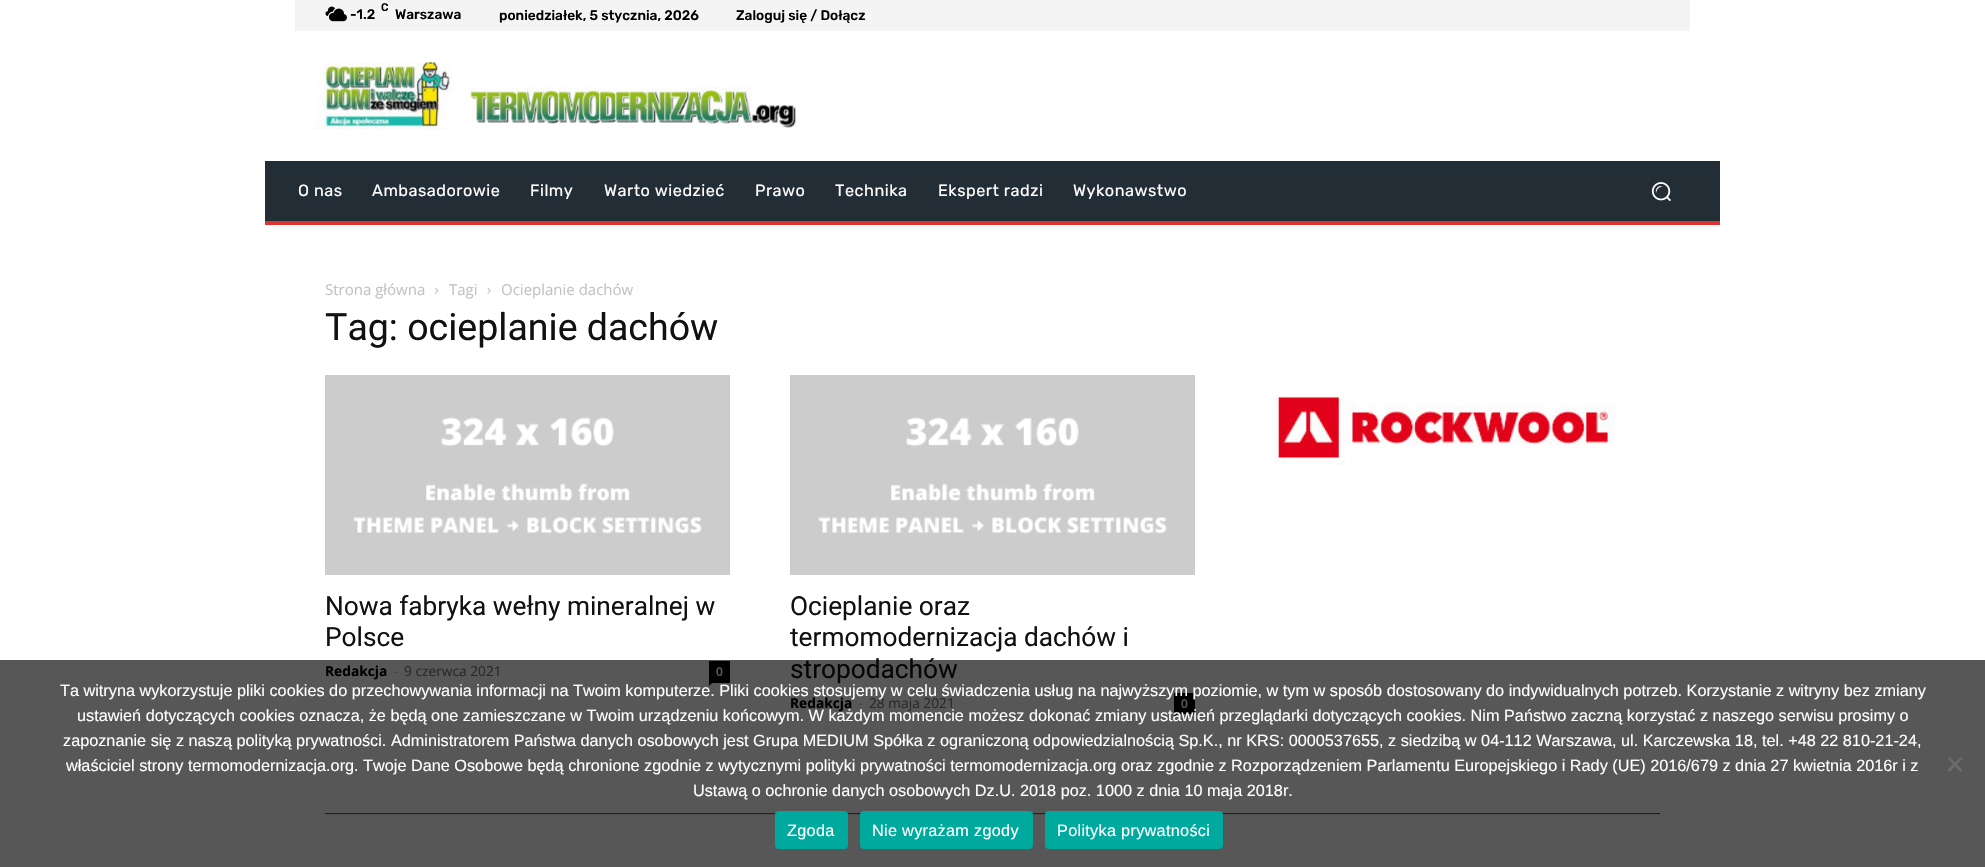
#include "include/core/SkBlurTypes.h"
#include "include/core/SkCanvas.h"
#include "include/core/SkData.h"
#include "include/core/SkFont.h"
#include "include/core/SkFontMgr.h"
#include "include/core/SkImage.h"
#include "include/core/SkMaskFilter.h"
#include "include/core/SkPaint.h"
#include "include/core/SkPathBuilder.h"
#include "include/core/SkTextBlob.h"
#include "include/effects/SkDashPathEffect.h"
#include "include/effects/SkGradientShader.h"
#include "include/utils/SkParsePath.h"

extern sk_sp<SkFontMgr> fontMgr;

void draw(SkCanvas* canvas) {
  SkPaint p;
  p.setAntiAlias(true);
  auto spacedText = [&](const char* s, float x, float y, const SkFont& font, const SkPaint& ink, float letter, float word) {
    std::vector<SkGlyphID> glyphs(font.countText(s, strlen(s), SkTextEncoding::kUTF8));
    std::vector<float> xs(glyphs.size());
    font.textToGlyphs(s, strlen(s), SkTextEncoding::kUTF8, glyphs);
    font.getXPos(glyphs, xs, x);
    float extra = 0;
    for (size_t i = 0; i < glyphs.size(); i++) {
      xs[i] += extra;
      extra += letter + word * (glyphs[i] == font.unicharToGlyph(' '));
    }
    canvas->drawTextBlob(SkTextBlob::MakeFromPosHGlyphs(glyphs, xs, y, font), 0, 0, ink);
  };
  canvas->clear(SK_ColorWHITE);
  p.setColor(SkColorSetRGB(244, 244, 244));
  canvas->drawRect(SkRect::MakeLTRB(295, 0, 1690, 31), p);
  canvas->drawImageRect(SkImages::DeferredFromEncodedData(SkData::MakeFromFileName("images/1.png")), SkRect::MakeLTRB(325, 6, 347, 22), SkSamplingOptions());
  canvas->drawImageRect(SkImages::DeferredFromEncodedData(SkData::MakeFromFileName("images/2.png")), SkRect::MakeLTRB(313, 62, 797, 130), SkSamplingOptions());
  p.setColor(SkColorSetRGB(35, 45, 53));
  canvas->drawRect(SkRect::MakeLTRB(265, 161, 1720, 221), p);
  canvas->drawImageRect(SkImages::DeferredFromEncodedData(SkData::MakeFromFileName("images/3.png")), SkRect::MakeLTRB(1651, 182, 1671, 202), SkSamplingOptions());
  p.setColor(SkColorSetRGB(221, 51, 51));
  canvas->drawRect(SkRect::MakeLTRB(265, 221, 1720, 225), p);
  canvas->drawImageRect(SkImages::DeferredFromEncodedData(SkData::MakeFromFileName("images/4.png")), SkRect::MakeLTRB(435, 287, 439, 294), SkSamplingOptions());
  canvas->drawImageRect(SkImages::DeferredFromEncodedData(SkData::MakeFromFileName("images/5.png")), SkRect::MakeLTRB(487, 288, 491, 294), SkSamplingOptions());
  canvas->drawImageRect(SkImages::DeferredFromEncodedData(SkData::MakeFromFileName("images/6.png")), SkRect::MakeLTRB(325, 375, 730, 575), SkSamplingOptions());
  p.setColor(SK_ColorBLACK);
  canvas->drawRect(SkRect::MakeLTRB(709, 661, 730, 683), p);
  canvas->drawPath(SkPathBuilder().moveTo(709, 682.5f).lineTo(712.5f, 682.5f).lineTo(709, 686).close().detach(), p);
  canvas->drawImageRect(SkImages::DeferredFromEncodedData(SkData::MakeFromFileName("images/7.png")), SkRect::MakeLTRB(790, 375, 1195, 575), SkSamplingOptions());
  canvas->drawRect(SkRect::MakeLTRB(1174, 693, 1195, 714), p);
  canvas->drawPath(SkPathBuilder().moveTo(1174, 714).lineTo(1177.5f, 714).lineTo(1174, 717.5f).close().detach(), p);
  canvas->drawImageRect(SkImages::DeferredFromEncodedData(SkData::MakeFromFileName("images/8.png")), SkRect::MakeLTRB(1275, 395, 1615, 465), SkSamplingOptions());
  p.setColor(SkColorSetRGB(225, 40, 30));
  canvas->drawRect(SkRect::MakeLTRB(325, 813, 1660, 814), p);
  p.setColor(SkColorSetRGB(235, 235, 235));
  canvas->drawRect(SkRect::MakeLTRB(325, 814, 1660, 815), p);
  SkFont font1(fontMgr->matchFamilyStyle("Rubik", SkFontStyle(500, SkFontStyle::kNormal_Width, SkFontStyle::kUpright_Slant)), 11);
  font1.setSubpixel(true);
  p.setColor(SK_ColorBLACK);
  canvas->drawString("C", 381, 11, font1, p);
  SkFont font2(fontMgr->matchFamilyStyle("Rubik", SkFontStyle(500, SkFontStyle::kNormal_Width, SkFontStyle::kUpright_Slant)), 13.75f);
  font2.setSubpixel(true);
  canvas->drawString("-1.2", 350, 19, font2, p);
  canvas->drawString("Warszawa", 395, 19, font2, p);
  canvas->drawString("poniedziałek, 5 stycznia, 2026", 499, 20, font2, p);
  canvas->drawString("Zaloguj się / Dołącz", 736, 20, font2, p);
  SkFont font3(fontMgr->matchFamilyStyle("Rubik", SkFontStyle::Normal()), 16.25f);
  font3.setSubpixel(true);
  p.setColor(SK_ColorWHITE);
  spacedText("O nas", 298, 196, font3, p, 0.5f, 0);
  spacedText("Ambasadorowie", 372, 196, font3, p, 0.5f, 0);
  spacedText("Filmy", 530, 196, font3, p, 0.5f, 0);
  spacedText("Warto wiedzieć", 604, 196, font3, p, 0.5f, 0);
  spacedText("Prawo", 755, 196, font3, p, 0.5f, 0);
  spacedText("Technika", 835, 196, font3, p, 0.5f, 0);
  spacedText("Ekspert radzi", 938, 196, font3, p, 0.5f, 0);
  spacedText("Wykonawstwo", 1073, 196, font3, p, 0.5f, 0);
  SkFont font4(fontMgr->matchFamilyStyle("Open Sans", SkFontStyle::Normal()), 15);
  font4.setSubpixel(true);
  p.setColor(SkColorSetRGB(195, 195, 195));
  canvas->drawString("Strona główna", 325, 295, font4, p);
  canvas->drawString("Tagi", 449, 295, font4, p);
  canvas->drawString("Ocieplanie dachów", 501, 295, font4, p);
  SkFont font5(fontMgr->matchFamilyStyle("Roboto", SkFontStyle::Normal()), 37.5f);
  font5.setSubpixel(true);
  p.setColor(SkColorSetRGB(17, 17, 17));
  canvas->drawString("Tag: ocieplanie dachów", 325, 340, font5, p);
  SkFont font6(fontMgr->matchFamilyStyle("Roboto", SkFontStyle::Normal()), 26.25f);
  font6.setSubpixel(true);
  canvas->drawString("Nowa fabryka wełny mineralnej w", 325, 615, font6, p);
  canvas->drawString("Polsce", 325, 646, font6, p);
  SkFont font7(fontMgr->matchFamilyStyle("Open Sans", SkFontStyle::Bold()), 13.75f);
  font7.setSubpixel(true);
  p.setColor(SK_ColorBLACK);
  canvas->drawString("Redakcja", 325, 676, font7, p);
  SkFont font8(fontMgr->matchFamilyStyle("Open Sans", SkFontStyle::Normal()), 13.75f);
  font8.setSubpixel(true);
  p.setColor(SkColorSetRGB(204, 204, 204));
  canvas->drawString("-", 393, 676, font8, p);
  p.setColor(SkColorSetRGB(118, 118, 118));
  canvas->drawString("9 czerwca 2021", 404, 676, font8, p);
  SkFont font9(fontMgr->matchFamilyStyle("Open Sans", SkFontStyle(600, SkFontStyle::kNormal_Width, SkFontStyle::kUpright_Slant)), 12);
  font9.setSubpixel(true);
  p.setColor(SK_ColorWHITE);
  canvas->drawString("0", 716, 676, font9, p);
  p.setColor(SkColorSetRGB(17, 17, 17));
  canvas->drawString("Ocieplanie oraz", 790, 615, font6, p);
  canvas->drawString("termomodernizacja dachów i", 790, 646, font6, p);
  canvas->drawString("stropodachów", 790, 678, font6, p);
  p.setColor(SK_ColorBLACK);
  canvas->drawString("Redakcja", 790, 708, font7, p);
  p.setColor(SkColorSetRGB(204, 204, 204));
  canvas->drawString("-", 858, 708, font8, p);
  p.setColor(SkColorSetRGB(118, 118, 118));
  canvas->drawString("28 maja 2021", 869, 708, font8, p);
  p.setColor(SK_ColorWHITE);
  canvas->drawString("0", 1181, 708, font9, p);
  p.setColor(SkColorSetARGB(168, 0, 0, 0));
  canvas->drawRect(SkRect::MakeLTRB(0, 660, 1985, 867), p);
  SkFont font10(fontMgr->matchFamilyStyle("Liberation Sans", SkFontStyle::Normal()), 16.25f);
  font10.setSubpixel(true);
  p.setColor(SK_ColorWHITE);
  canvas->drawString("Ta witryna wykorzystuje pliki cookies do przechowywania informacji na Twoim komputerze. Pliki cookies stosujemy w celu świadczenia usług na najwyższym poziomie, w tym w sposób dostosowany do indywidualnych potrzeb. Korzystanie z witryny bez zmiany", 60, 696, font10, p);
  canvas->drawString("ustawień dotyczących cookies oznacza, że będą one zamieszczane w Twoim urządzeniu końcowym. W każdym momencie możesz dokonać zmiany ustawień przeglądarki dotyczących cookies. Nim Państwo zaczną korzystać z naszego serwisu prosimy o", 77, 721, font10, p);
  canvas->drawString("zapoznanie się z naszą polityką prywatności. Administratorem Państwa danych osobowych jest Grupa MEDIUM Spółka z ograniczoną odpowiedzialnością Sp.K., nr KRS: 0000537655, z siedzibą w 04-112 Warszawa, ul. Karczewska 18, tel. +48 22 810-21-24,", 63, 746, font10, p);
  canvas->drawString("właściciel strony termomodernizacja.org. Twoje Dane Osobowe będą chronione zgodnie z wytycznymi polityki prywatności termomodernizacja.org oraz zgodnie z Rozporządzeniem Parlamentu Europejskiego i Rady (UE) 2016/679 z dnia 27 kwietnia 2016r i z", 66, 771, font10, p);
  canvas->drawString("Ustawą o ochronie danych osobowych Dz.U. 2018 poz. 1000 z dnia 10 maja 2018r.", 693, 796, font10, p);
  p.setColor(SkColorSetRGB(107, 107, 107));
  canvas->drawPath(SkPathBuilder().moveTo(1960.5f, 757).lineTo(1962.5f, 758.5f).lineTo(1949.5f, 772).lineTo(1947.5f, 770).close().detach(), p);
  canvas->drawPath(SkPathBuilder().moveTo(1947.5f, 758.5f).lineTo(1949.5f, 757).lineTo(1962.5f, 770).lineTo(1960.5f, 772).close().detach(), p);
  p.setColor(SkColorSetRGB(0, 169, 157));
  canvas->drawRoundRect(SkRect::MakeLTRB(775, 811, 848, 849), 4, 4, p);
  p.setColor(SK_ColorWHITE);
  spacedText("Zgoda", 787, 836, font10, p, 0.3f, 0);
  p.setColor(SkColorSetRGB(0, 169, 157));
  canvas->drawRoundRect(SkRect::MakeLTRB(860, 811, 1033, 849), 4, 4, p);
  p.setColor(SK_ColorWHITE);
  spacedText("Nie wyrażam zgody", 872, 836, font10, p, 0.3f, 0);
  p.setColor(SkColorSetRGB(0, 169, 157));
  canvas->drawRoundRect(SkRect::MakeLTRB(1045, 811, 1223, 849), 4, 4, p);
  p.setColor(SK_ColorWHITE);
  spacedText("Polityka prywatności", 1057, 836, font10, p, 0.3f, 0);
}
